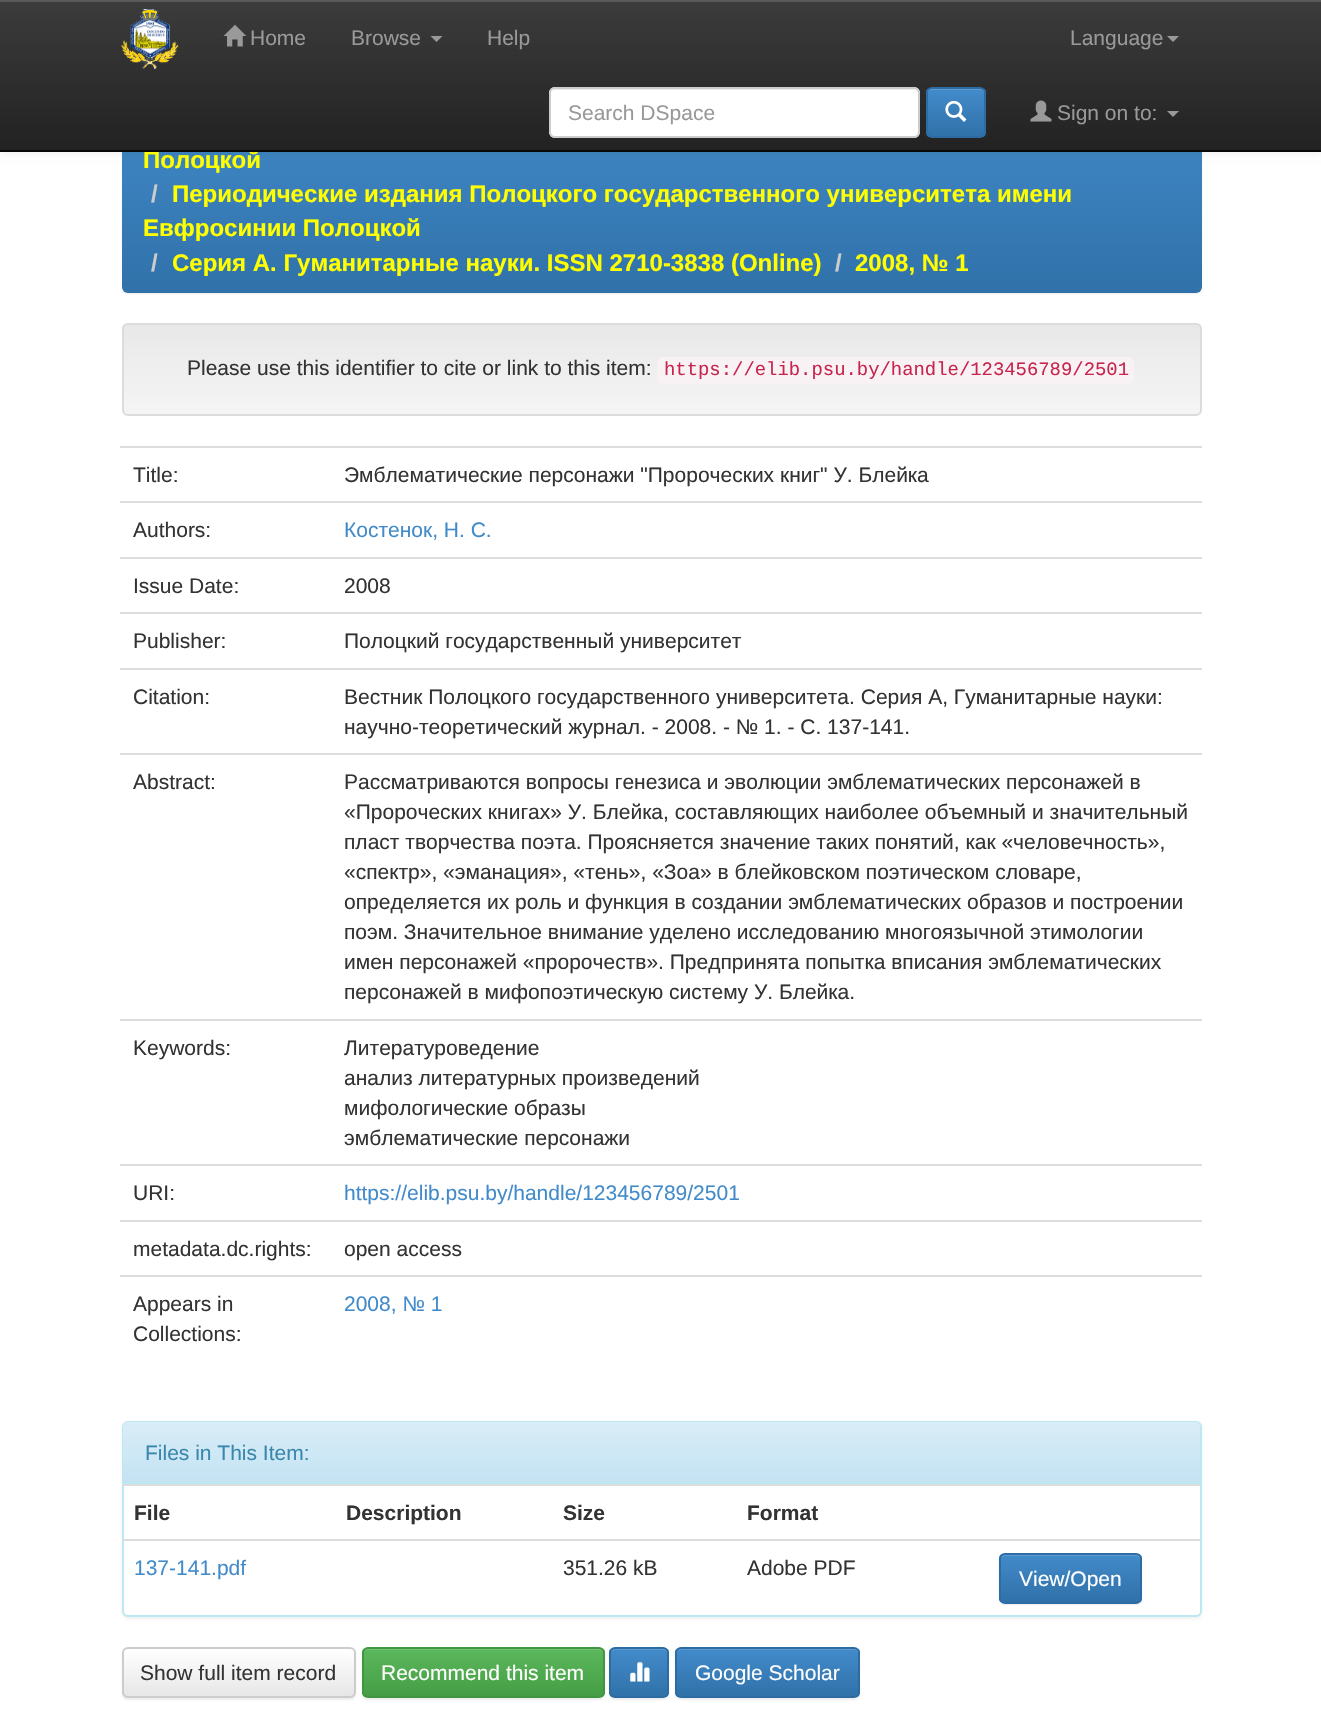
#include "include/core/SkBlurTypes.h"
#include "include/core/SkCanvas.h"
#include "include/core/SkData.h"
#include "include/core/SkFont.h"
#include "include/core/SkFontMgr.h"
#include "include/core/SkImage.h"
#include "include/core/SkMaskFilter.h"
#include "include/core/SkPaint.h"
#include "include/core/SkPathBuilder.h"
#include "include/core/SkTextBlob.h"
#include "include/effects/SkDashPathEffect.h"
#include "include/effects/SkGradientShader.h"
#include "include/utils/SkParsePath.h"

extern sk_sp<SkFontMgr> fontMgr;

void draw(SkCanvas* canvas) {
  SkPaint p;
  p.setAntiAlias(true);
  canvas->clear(SK_ColorWHITE);
  p.setColor(SkColorSetARGB(18, 0, 0, 0));
  p.setMaskFilter(SkMaskFilter::MakeBlur(kNormal_SkBlurStyle, 1));
  canvas->drawRoundRect(SkRect::MakeLTRB(122, 99, 1202, 294), 6, 6, p);
  p.setMaskFilter(nullptr);
  {
    const SkColor colors[] = {SkColorSetRGB(66, 139, 202), SkColorSetRGB(48, 113, 169)};
    const float stops[] = {0, 1};
    const SkPoint ends[] = {{662, 97}, {662, 293}};
    p.setShader(SkGradientShader::MakeLinear(ends, colors, stops, 2, SkTileMode::kClamp));
    p.setAlpha(255);
  }
  canvas->drawRoundRect(SkRect::MakeLTRB(122, 98, 1202, 293), 6, 6, p);
  p.setShader(nullptr);
  p.setColor(SkColorSetARGB(18, 0, 0, 0));
  p.setMaskFilter(SkMaskFilter::MakeBlur(kNormal_SkBlurStyle, 4));
  canvas->drawRect(SkRect::MakeLTRB(0, 2, 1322, 153), p);
  p.setMaskFilter(nullptr);
  {
    const SkColor colors[] = {SkColorSetRGB(60, 60, 60), SkColorSetRGB(34, 34, 34)};
    const float stops[] = {0, 1};
    const SkPoint ends[] = {{661, 0}, {661, 150}};
    p.setShader(SkGradientShader::MakeLinear(ends, colors, stops, 2, SkTileMode::kClamp));
    p.setAlpha(255);
  }
  canvas->drawRect(SkRect::MakeLTRB(0, 2, 1321, 150), p);
  p.setShader(nullptr);
  p.setColor(SkColorSetRGB(89, 89, 89));
  canvas->drawRect(SkRect::MakeLTRB(0, 0, 1321, 2), p);
  canvas->drawImageRect(SkImages::DeferredFromEncodedData(SkData::MakeFromFileName("images/1.png")), SkRect::MakeLTRB(121, 9, 179, 70), SkSamplingOptions());
  canvas->drawImageRect(SkImages::DeferredFromEncodedData(SkData::MakeFromFileName("images/2.png")), SkRect::MakeLTRB(223, 24, 247, 47), SkSamplingOptions());
  p.setColor(SkColorSetRGB(153, 153, 153));
  canvas->drawPath(SkPathBuilder().moveTo(430.5f, 36).lineTo(442.5f, 36).lineTo(436.5f, 42).close().detach(), p);
  canvas->drawPath(SkPathBuilder().moveTo(1167, 36).lineTo(1179, 36).lineTo(1173, 42).close().detach(), p);
  p.setColor(SK_ColorWHITE);
  canvas->drawRoundRect(SkRect::MakeLTRB(549, 87, 920, 138), 6, 6, p);
  p.setColor(SkColorSetRGB(236, 236, 236));
  canvas->drawPath(SkPathBuilder().moveTo(555, 90).lineTo(914, 90).cubicTo(916, 90, 918, 92, 918, 94).cubicTo(918, 91, 916, 89, 913, 89).lineTo(556, 89).cubicTo(554, 89, 553, 90, 552, 91).close().detach(), p);
  p.setStyle(SkPaint::kStroke_Style);
  p.setStrokeWidth(2);
  p.setColor(SkColorSetRGB(204, 204, 204));
  canvas->drawRoundRect(SkRect::MakeLTRB(550, 88, 919, 137), 5, 5, p);
  canvas->save();
  canvas->clipPath(SkPathBuilder().moveTo(932, 87).lineTo(980, 87).cubicTo(983.5f, 87, 986, 89.5f, 986, 93).lineTo(986, 132).cubicTo(986, 135.5f, 983.5f, 138, 980, 138).lineTo(932, 138).cubicTo(928.5f, 138, 926, 135.5f, 926, 132).lineTo(926, 93).cubicTo(926, 89.5f, 928.5f, 87, 932, 87).close().detach(), true);
  p.setStyle(SkPaint::kFill_Style);
  {
    const SkColor colors[] = {SkColorSetRGB(66, 139, 202), SkColorSetRGB(48, 113, 169)};
    const float stops[] = {0, 1};
    const SkPoint ends[] = {{956, 89}, {956, 137}};
    p.setShader(SkGradientShader::MakeLinear(ends, colors, stops, 2, SkTileMode::kClamp));
    p.setAlpha(255);
  }
  canvas->drawRect(SkRect::MakeLTRB(926, 89, 986, 137), p);
  canvas->restore();
  p.setShader(nullptr);
  p.setColor(SkColorSetRGB(94, 156, 210));
  canvas->drawPath(SkPathBuilder().moveTo(932, 90).lineTo(980, 90).cubicTo(982, 90, 984, 92, 984, 94).cubicTo(984, 91, 982, 89, 979, 89).lineTo(932, 89).cubicTo(929, 89, 927, 91, 927, 94).cubicTo(927, 92, 929, 90, 932, 90).close().detach(), p);
  p.setStyle(SkPaint::kStroke_Style);
  p.setColor(SkColorSetRGB(45, 108, 162));
  canvas->drawRoundRect(SkRect::MakeLTRB(927, 88, 985, 137), 5, 5, p);
  canvas->drawImageRect(SkImages::DeferredFromEncodedData(SkData::MakeFromFileName("images/3.png")), SkRect::MakeLTRB(945, 100, 967, 122), SkSamplingOptions());
  canvas->drawImageRect(SkImages::DeferredFromEncodedData(SkData::MakeFromFileName("images/4.png")), SkRect::MakeLTRB(1030, 100, 1052, 122), SkSamplingOptions());
  p.setStyle(SkPaint::kFill_Style);
  p.setColor(SkColorSetRGB(153, 153, 153));
  canvas->drawPath(SkPathBuilder().moveTo(1167, 111).lineTo(1179, 111).lineTo(1173, 117).close().detach(), p);
  canvas->save();
  canvas->clipPath(SkPathBuilder().moveTo(128, 323).lineTo(1196, 323).cubicTo(1199.5f, 323, 1202, 325.5f, 1202, 329).lineTo(1202, 410).cubicTo(1202, 413.5f, 1199.5f, 416, 1196, 416).lineTo(128, 416).cubicTo(124.5f, 416, 122, 413.5f, 122, 410).lineTo(122, 329).cubicTo(122, 325.5f, 124.5f, 323, 128, 323).close().detach(), true);
  {
    const SkColor colors[] = {SkColorSetRGB(232, 232, 232), SkColorSetRGB(245, 245, 245)};
    const float stops[] = {0, 1};
    const SkPoint ends[] = {{662, 324}, {662, 414}};
    p.setShader(SkGradientShader::MakeLinear(ends, colors, stops, 2, SkTileMode::kClamp));
    p.setAlpha(255);
  }
  canvas->drawRect(SkRect::MakeLTRB(122, 324, 1202, 414), p);
  canvas->restore();
  p.setStyle(SkPaint::kStroke_Style);
  p.setShader(nullptr);
  p.setColor(SkColorSetRGB(220, 220, 220));
  canvas->drawRoundRect(SkRect::MakeLTRB(123, 324, 1201, 415), 5, 5, p);
  p.setStyle(SkPaint::kFill_Style);
  p.setColor(SkColorSetRGB(249, 242, 244));
  canvas->drawRoundRect(SkRect::MakeLTRB(657, 357, 1134, 384), 6, 6, p);
  p.setColor(SkColorSetRGB(221, 221, 221));
  canvas->drawRect(SkRect::MakeLTRB(120, 446, 1202, 448), p);
  canvas->drawRect(SkRect::MakeLTRB(120, 501, 1202, 503), p);
  canvas->drawRect(SkRect::MakeLTRB(120, 557, 1202, 559), p);
  canvas->drawRect(SkRect::MakeLTRB(120, 612, 1202, 614), p);
  canvas->drawRect(SkRect::MakeLTRB(120, 668, 1202, 670), p);
  canvas->drawRect(SkRect::MakeLTRB(120, 753, 1202, 755), p);
  canvas->drawRect(SkRect::MakeLTRB(120, 1019, 1202, 1021), p);
  canvas->drawRect(SkRect::MakeLTRB(120, 1164, 1202, 1166), p);
  canvas->drawRect(SkRect::MakeLTRB(120, 1220, 1202, 1222), p);
  canvas->drawRect(SkRect::MakeLTRB(120, 1275, 1202, 1277), p);
  p.setColor(SkColorSetARGB(13, 0, 0, 0));
  p.setMaskFilter(SkMaskFilter::MakeBlur(kNormal_SkBlurStyle, 1.5f));
  canvas->drawRoundRect(SkRect::MakeLTRB(122, 1422, 1202, 1619), 6, 6, p);
  p.setMaskFilter(nullptr);
  p.setColor(SK_ColorWHITE);
  canvas->drawRoundRect(SkRect::MakeLTRB(123, 1422, 1201, 1616), 5, 5, p);
  p.setStyle(SkPaint::kStroke_Style);
  p.setColor(SkColorSetRGB(188, 232, 241));
  canvas->drawRoundRect(SkRect::MakeLTRB(123, 1422, 1201, 1616), 5, 5, p);
  p.setStyle(SkPaint::kFill_Style);
  {
    const SkColor colors[] = {SkColorSetRGB(217, 237, 247), SkColorSetRGB(196, 227, 243)};
    const float stops[] = {0, 1};
    const SkPoint ends[] = {{662, 1422}, {662, 1482}};
    p.setShader(SkGradientShader::MakeLinear(ends, colors, stops, 2, SkTileMode::kClamp));
    p.setAlpha(255);
  }
  canvas->drawPath(SkPathBuilder().moveTo(128, 1422).lineTo(1195, 1422).cubicTo(1198, 1422, 1200, 1424, 1200, 1427).lineTo(1200, 1482).lineTo(123, 1482).lineTo(123, 1427).cubicTo(123, 1424, 125, 1422, 128, 1422).close().detach(), p);
  p.setShader(nullptr);
  p.setColor(SkColorSetRGB(188, 232, 241));
  canvas->drawRect(SkRect::MakeLTRB(123, 1482, 1200, 1484), p);
  p.setColor(SkColorSetRGB(221, 221, 221));
  canvas->drawRect(SkRect::MakeLTRB(122, 1484, 1200, 1486), p);
  canvas->drawRect(SkRect::MakeLTRB(122, 1539, 1200, 1541), p);
  p.setColor(SkColorSetARGB(18, 0, 0, 0));
  p.setMaskFilter(SkMaskFilter::MakeBlur(kNormal_SkBlurStyle, 1));
  canvas->drawRoundRect(SkRect::MakeLTRB(999, 1554, 1142, 1605), 6, 6, p);
  p.setMaskFilter(nullptr);
  canvas->save();
  canvas->clipPath(SkPathBuilder().moveTo(1005, 1553).lineTo(1136, 1553).cubicTo(1139.5f, 1553, 1142, 1555.5f, 1142, 1559).lineTo(1142, 1598).cubicTo(1142, 1601.5f, 1139.5f, 1604, 1136, 1604).lineTo(1005, 1604).cubicTo(1001.5f, 1604, 999, 1601.5f, 999, 1598).lineTo(999, 1559).cubicTo(999, 1555.5f, 1001.5f, 1553, 1005, 1553).close().detach(), true);
  {
    const SkColor colors[] = {SkColorSetRGB(66, 139, 202), SkColorSetRGB(48, 113, 169)};
    const float stops[] = {0, 1};
    const SkPoint ends[] = {{1070, 1554}, {1070, 1602}};
    p.setShader(SkGradientShader::MakeLinear(ends, colors, stops, 2, SkTileMode::kClamp));
    p.setAlpha(255);
  }
  canvas->drawRect(SkRect::MakeLTRB(999, 1554, 1142, 1602), p);
  canvas->restore();
  p.setShader(nullptr);
  p.setColor(SkColorSetRGB(94, 156, 210));
  canvas->drawPath(SkPathBuilder().moveTo(1005, 1556).lineTo(1136, 1556).cubicTo(1138, 1556, 1140, 1558, 1140, 1560).lineTo(1140, 1559).cubicTo(1140, 1556, 1138, 1554, 1135, 1554).lineTo(1006, 1554).cubicTo(1004, 1554, 1002, 1556, 1001, 1558).cubicTo(1002, 1557, 1004, 1556, 1005, 1556).close().detach(), p);
  p.setStyle(SkPaint::kStroke_Style);
  p.setColor(SkColorSetRGB(45, 108, 162));
  canvas->drawRoundRect(SkRect::MakeLTRB(1000, 1554, 1141, 1603), 5, 5, p);
  p.setStyle(SkPaint::kFill_Style);
  p.setColor(SkColorSetARGB(18, 0, 0, 0));
  p.setMaskFilter(SkMaskFilter::MakeBlur(kNormal_SkBlurStyle, 1));
  canvas->drawRoundRect(SkRect::MakeLTRB(122, 1649, 356, 1700), 6, 6, p);
  p.setMaskFilter(nullptr);
  canvas->save();
  canvas->clipPath(SkPathBuilder().moveTo(128, 1647).lineTo(350, 1647).cubicTo(353.5f, 1647, 356, 1649.5f, 356, 1653).lineTo(356, 1692).cubicTo(356, 1695.5f, 353.5f, 1698, 350, 1698).lineTo(128, 1698).cubicTo(124.5f, 1698, 122, 1695.5f, 122, 1692).lineTo(122, 1653).cubicTo(122, 1649.5f, 124.5f, 1647, 128, 1647).close().detach(), true);
  {
    const SkColor colors[] = {SK_ColorWHITE, SkColorSetRGB(230, 230, 230)};
    const float stops[] = {0, 1};
    const SkPoint ends[] = {{239, 1649}, {239, 1697}};
    p.setShader(SkGradientShader::MakeLinear(ends, colors, stops, 2, SkTileMode::kClamp));
    p.setAlpha(255);
  }
  canvas->drawRect(SkRect::MakeLTRB(122, 1649, 356, 1697), p);
  canvas->restore();
  p.setStyle(SkPaint::kStroke_Style);
  p.setShader(nullptr);
  p.setColor(SkColorSetRGB(204, 204, 204));
  canvas->drawRoundRect(SkRect::MakeLTRB(123, 1648, 355, 1697), 5, 5, p);
  p.setStyle(SkPaint::kFill_Style);
  p.setColor(SkColorSetARGB(18, 0, 0, 0));
  p.setMaskFilter(SkMaskFilter::MakeBlur(kNormal_SkBlurStyle, 1));
  canvas->drawRoundRect(SkRect::MakeLTRB(362, 1649, 605, 1700), 6, 6, p);
  p.setMaskFilter(nullptr);
  canvas->save();
  canvas->clipPath(SkPathBuilder().moveTo(368, 1647).lineTo(599, 1647).cubicTo(602.5f, 1647, 605, 1649.5f, 605, 1653).lineTo(605, 1692).cubicTo(605, 1695.5f, 602.5f, 1698, 599, 1698).lineTo(368, 1698).cubicTo(364.5f, 1698, 362, 1695.5f, 362, 1692).lineTo(362, 1653).cubicTo(362, 1649.5f, 364.5f, 1647, 368, 1647).close().detach(), true);
  {
    const SkColor colors[] = {SkColorSetRGB(92, 184, 92), SkColorSetRGB(68, 157, 68)};
    const float stops[] = {0, 1};
    const SkPoint ends[] = {{483, 1649}, {483, 1697}};
    p.setShader(SkGradientShader::MakeLinear(ends, colors, stops, 2, SkTileMode::kClamp));
    p.setAlpha(255);
  }
  canvas->drawRect(SkRect::MakeLTRB(362, 1649, 605, 1697), p);
  canvas->restore();
  p.setShader(nullptr);
  p.setColor(SkColorSetRGB(116, 195, 116));
  canvas->drawPath(SkPathBuilder().moveTo(368, 1650).lineTo(598, 1650).cubicTo(601, 1650, 603, 1652, 603, 1654).cubicTo(603, 1651, 601, 1649, 598, 1649).lineTo(368, 1649).cubicTo(365, 1649, 363, 1651, 363, 1654).cubicTo(363, 1652, 365, 1650, 368, 1650).close().detach(), p);
  p.setStyle(SkPaint::kStroke_Style);
  p.setColor(SkColorSetRGB(65, 150, 65));
  canvas->drawRoundRect(SkRect::MakeLTRB(363, 1648, 604, 1697), 5, 5, p);
  p.setStyle(SkPaint::kFill_Style);
  p.setColor(SkColorSetARGB(18, 0, 0, 0));
  p.setMaskFilter(SkMaskFilter::MakeBlur(kNormal_SkBlurStyle, 1));
  canvas->drawRoundRect(SkRect::MakeLTRB(609, 1649, 669, 1700), 6, 6, p);
  p.setMaskFilter(nullptr);
  canvas->save();
  canvas->clipPath(SkPathBuilder().moveTo(615, 1647).lineTo(663, 1647).cubicTo(666.5f, 1647, 669, 1649.5f, 669, 1653).lineTo(669, 1692).cubicTo(669, 1695.5f, 666.5f, 1698, 663, 1698).lineTo(615, 1698).cubicTo(611.5f, 1698, 609, 1695.5f, 609, 1692).lineTo(609, 1653).cubicTo(609, 1649.5f, 611.5f, 1647, 615, 1647).close().detach(), true);
  {
    const SkColor colors[] = {SkColorSetRGB(66, 139, 202), SkColorSetRGB(48, 113, 169)};
    const float stops[] = {0, 1};
    const SkPoint ends[] = {{639, 1649}, {639, 1697}};
    p.setShader(SkGradientShader::MakeLinear(ends, colors, stops, 2, SkTileMode::kClamp));
    p.setAlpha(255);
  }
  canvas->drawRect(SkRect::MakeLTRB(609, 1649, 669, 1697), p);
  canvas->restore();
  p.setShader(nullptr);
  p.setColor(SkColorSetRGB(94, 156, 210));
  canvas->drawPath(SkPathBuilder().moveTo(615, 1650).lineTo(663, 1650).cubicTo(665, 1650, 668, 1652, 668, 1654).cubicTo(668, 1651, 666, 1649, 663, 1649).lineTo(616, 1649).cubicTo(614, 1649, 613, 1650, 612, 1651).close().detach(), p);
  p.setStyle(SkPaint::kStroke_Style);
  p.setColor(SkColorSetRGB(45, 108, 162));
  canvas->drawRoundRect(SkRect::MakeLTRB(610, 1648, 668, 1697), 5, 5, p);
  canvas->drawImageRect(SkImages::DeferredFromEncodedData(SkData::MakeFromFileName("images/5.png")), SkRect::MakeLTRB(630, 1662, 650, 1682), SkSamplingOptions());
  p.setStyle(SkPaint::kFill_Style);
  p.setColor(SkColorSetARGB(18, 0, 0, 0));
  p.setMaskFilter(SkMaskFilter::MakeBlur(kNormal_SkBlurStyle, 1));
  canvas->drawRoundRect(SkRect::MakeLTRB(675, 1649, 860, 1700), 6, 6, p);
  p.setMaskFilter(nullptr);
  canvas->save();
  canvas->clipPath(SkPathBuilder().moveTo(681, 1647).lineTo(854, 1647).cubicTo(857.5f, 1647, 860, 1649.5f, 860, 1653).lineTo(860, 1692).cubicTo(860, 1695.5f, 857.5f, 1698, 854, 1698).lineTo(681, 1698).cubicTo(677.5f, 1698, 675, 1695.5f, 675, 1692).lineTo(675, 1653).cubicTo(675, 1649.5f, 677.5f, 1647, 681, 1647).close().detach(), true);
  {
    const SkColor colors[] = {SkColorSetRGB(66, 139, 202), SkColorSetRGB(48, 113, 169)};
    const float stops[] = {0, 1};
    const SkPoint ends[] = {{767, 1649}, {767, 1697}};
    p.setShader(SkGradientShader::MakeLinear(ends, colors, stops, 2, SkTileMode::kClamp));
    p.setAlpha(255);
  }
  canvas->drawRect(SkRect::MakeLTRB(675, 1649, 860, 1697), p);
  canvas->restore();
  p.setShader(nullptr);
  p.setColor(SkColorSetRGB(94, 156, 210));
  canvas->drawPath(SkPathBuilder().moveTo(681, 1650).lineTo(854, 1650).cubicTo(856, 1650, 858, 1652, 858, 1654).cubicTo(858, 1651, 856, 1649, 853, 1649).lineTo(682, 1649).cubicTo(680, 1649, 679, 1650, 678, 1651).close().detach(), p);
  p.setStyle(SkPaint::kStroke_Style);
  p.setColor(SkColorSetRGB(45, 108, 162));
  canvas->drawRoundRect(SkRect::MakeLTRB(676, 1648, 859, 1697), 5, 5, p);
  SkFont font1(fontMgr->matchFamilyStyle("Liberation Sans", SkFontStyle::Normal()), 21);
  font1.setSubpixel(true);
  p.setStyle(SkPaint::kFill_Style);
  p.setColor(SkColorSetRGB(153, 153, 153));
  canvas->drawString("Home", 250, 45, font1, p);
  canvas->drawString("Browse", 351, 45, font1, p);
  canvas->drawString("Help", 487, 45, font1, p);
  canvas->drawString("Language", 1070, 45, font1, p);
  canvas->drawString("Search DSpace", 568, 120, font1, p);
  canvas->drawString("Sign on to:", 1057, 120, font1, p);
  SkFont font2(fontMgr->matchFamilyStyle("Liberation Sans", SkFontStyle::Bold()), 24);
  font2.setSubpixel(true);
  p.setColor(SkColorSetRGB(255, 255, 0));
  canvas->drawString("Полоцкой", 143, 168, font2, p);
  p.setColor(SkColorSetRGB(8, 8, 8));
  canvas->drawRect(SkRect::MakeLTRB(0, 150, 1321, 152), p);
  p.setColor(SkColorSetRGB(204, 204, 204));
  canvas->drawString("/", 151, 202, font2, p);
  p.setColor(SkColorSetRGB(255, 255, 0));
  canvas->drawString("Периодические издания Полоцкого государственного университета имени", 172, 202, font2, p);
  canvas->drawString("Евфросинии Полоцкой", 143, 236, font2, p);
  p.setColor(SkColorSetRGB(204, 204, 204));
  canvas->drawString("/", 151, 271, font2, p);
  p.setColor(SkColorSetRGB(255, 255, 0));
  canvas->drawString("Серия A. Гуманитарные науки. ISSN 2710-3838 (Online)", 172, 271, font2, p);
  p.setColor(SkColorSetRGB(204, 204, 204));
  canvas->drawString("/", 835, 271, font2, p);
  p.setColor(SkColorSetRGB(255, 255, 0));
  canvas->drawString("2008, № 1", 855, 271, font2, p);
  p.setColor(SkColorSetRGB(51, 51, 51));
  canvas->drawString("Please use this identifier to cite or link to this item:", 187, 375, font1, p);
  SkFont font3(fontMgr->matchFamilyStyle("Liberation Mono", SkFontStyle::Normal()), 18.9f);
  font3.setSubpixel(true);
  p.setColor(SkColorSetRGB(199, 37, 78));
  canvas->drawString("https://elib.psu.by/handle/123456789/2501", 664, 375, font3, p);
  p.setColor(SkColorSetRGB(51, 51, 51));
  canvas->drawString("Title:", 133, 482, font1, p);
  canvas->drawString("Эмблематические персонажи \"Пророческих книг\" У. Блейка", 344, 482, font1, p);
  canvas->drawString("Authors:", 133, 537, font1, p);
  p.setColor(SkColorSetRGB(66, 139, 202));
  canvas->drawString("Костенок, Н. С.", 344, 537, font1, p);
  p.setColor(SkColorSetRGB(51, 51, 51));
  canvas->drawString("Issue Date:", 133, 593, font1, p);
  canvas->drawString("2008", 344, 593, font1, p);
  canvas->drawString("Publisher:", 133, 648, font1, p);
  canvas->drawString("Полоцкий государственный университет", 344, 648, font1, p);
  canvas->drawString("Citation:", 133, 704, font1, p);
  canvas->drawString("Вестник Полоцкого государственного университета. Серия A, Гуманитарные науки:", 344, 704, font1, p);
  canvas->drawString("научно-теоретический журнал. - 2008. - № 1. - С. 137-141.", 344, 734, font1, p);
  canvas->drawString("Abstract:", 133, 789, font1, p);
  canvas->drawString("Рассматриваются вопросы генезиса и эволюции эмблематических персонажей в", 344, 789, font1, p);
  canvas->drawString("«Пророческих книгах» У. Блейка, составляющих наиболее объемный и значительный", 344, 819, font1, p);
  canvas->drawString("пласт творчества поэта. Проясняется значение таких понятий, как «человечность»,", 344, 849, font1, p);
  canvas->drawString("«спектр», «эманация», «тень», «Зоа» в блейковском поэтическом словаре,", 344, 879, font1, p);
  canvas->drawString("определяется их роль и функция в создании эмблематических образов и построении", 344, 909, font1, p);
  canvas->drawString("поэм. Значительное внимание уделено исследованию многоязычной этимологии", 344, 939, font1, p);
  canvas->drawString("имен персонажей «пророчеств». Предпринята попытка вписания эмблематических", 344, 969, font1, p);
  canvas->drawString("персонажей в мифопоэтическую систему У. Блейка.", 344, 999, font1, p);
  canvas->drawString("Keywords:", 133, 1055, font1, p);
  canvas->drawString("Литературоведение", 344, 1055, font1, p);
  canvas->drawString("анализ литературных произведений", 344, 1085, font1, p);
  canvas->drawString("мифологические образы", 344, 1115, font1, p);
  canvas->drawString("эмблематические персонажи", 344, 1145, font1, p);
  canvas->drawString("URI:", 133, 1200, font1, p);
  p.setColor(SkColorSetRGB(66, 139, 202));
  canvas->drawString("https://elib.psu.by/handle/123456789/2501", 344, 1200, font1, p);
  p.setColor(SkColorSetRGB(51, 51, 51));
  canvas->drawString("metadata.dc.rights:", 133, 1256, font1, p);
  canvas->drawString("open access", 344, 1256, font1, p);
  canvas->drawString("Appears in", 133, 1311, font1, p);
  canvas->drawString("Collections:", 133, 1341, font1, p);
  p.setColor(SkColorSetRGB(66, 139, 202));
  canvas->drawString("2008, № 1", 344, 1311, font1, p);
  p.setColor(SkColorSetRGB(58, 135, 173));
  canvas->drawString("Files in This Item:", 145, 1460, font1, p);
  SkFont font4(fontMgr->matchFamilyStyle("Liberation Sans", SkFontStyle::Bold()), 21);
  font4.setSubpixel(true);
  p.setColor(SkColorSetRGB(51, 51, 51));
  canvas->drawString("File", 134, 1520, font4, p);
  canvas->drawString("Description", 346, 1520, font4, p);
  canvas->drawString("Size", 563, 1520, font4, p);
  canvas->drawString("Format", 747, 1520, font4, p);
  p.setColor(SkColorSetRGB(66, 139, 202));
  canvas->drawString("137-141.pdf", 134, 1575, font1, p);
  p.setColor(SkColorSetRGB(51, 51, 51));
  canvas->drawString("351.26 kB", 563, 1575, font1, p);
  canvas->drawString("Adobe PDF", 747, 1575, font1, p);
  p.setColor(SK_ColorWHITE);
  canvas->drawString("View/Open", 1019, 1586, font1, p);
  p.setColor(SkColorSetRGB(51, 51, 51));
  canvas->drawString("Show full item record", 140, 1680, font1, p);
  p.setColor(SK_ColorWHITE);
  canvas->drawString("Recommend this item", 381, 1680, font1, p);
  canvas->drawString("Google Scholar", 695, 1680, font1, p);
}
